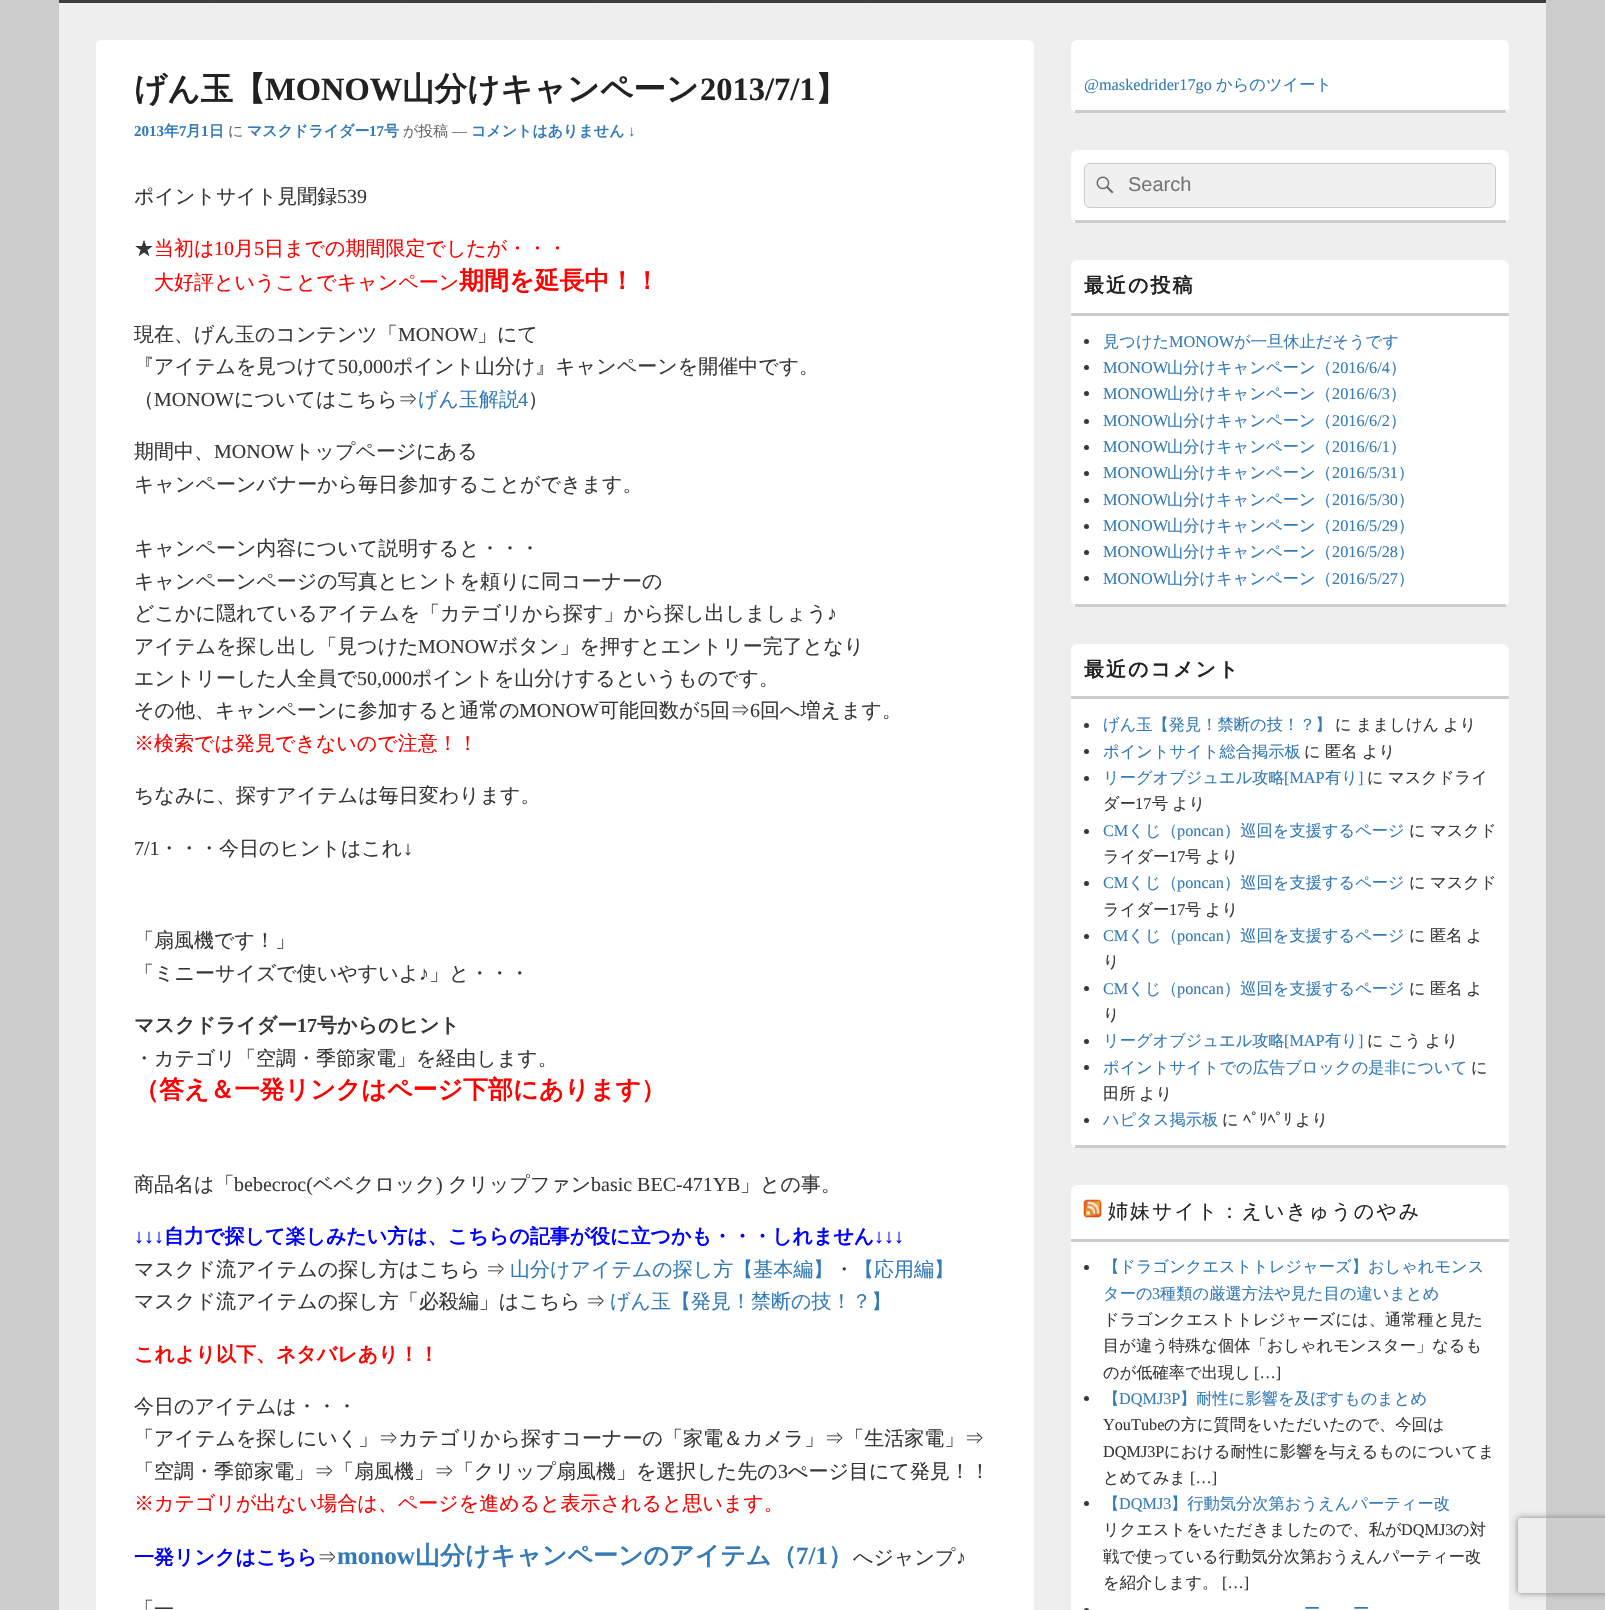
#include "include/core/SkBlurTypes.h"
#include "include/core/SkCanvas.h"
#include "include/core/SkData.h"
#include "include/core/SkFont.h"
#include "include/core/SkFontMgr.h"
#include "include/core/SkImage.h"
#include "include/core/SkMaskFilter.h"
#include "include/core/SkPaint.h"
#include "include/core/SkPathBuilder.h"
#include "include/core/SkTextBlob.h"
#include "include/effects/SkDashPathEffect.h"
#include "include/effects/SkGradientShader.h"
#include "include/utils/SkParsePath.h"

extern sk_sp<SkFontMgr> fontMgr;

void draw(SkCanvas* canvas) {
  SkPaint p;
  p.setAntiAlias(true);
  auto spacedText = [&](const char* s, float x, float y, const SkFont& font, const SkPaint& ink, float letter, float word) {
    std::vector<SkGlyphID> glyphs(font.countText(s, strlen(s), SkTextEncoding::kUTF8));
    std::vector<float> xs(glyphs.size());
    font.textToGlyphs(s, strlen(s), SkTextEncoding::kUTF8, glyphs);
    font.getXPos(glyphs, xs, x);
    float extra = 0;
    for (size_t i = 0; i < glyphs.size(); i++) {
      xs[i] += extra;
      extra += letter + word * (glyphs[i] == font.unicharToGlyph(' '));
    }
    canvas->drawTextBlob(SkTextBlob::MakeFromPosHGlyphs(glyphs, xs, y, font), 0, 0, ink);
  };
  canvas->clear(SkColorSetRGB(204, 204, 204));
  p.setColor(SkColorSetRGB(238, 238, 238));
  canvas->drawRect(SkRect::MakeLTRB(59, 3, 1546, 1610), p);
  {
    const SkColor colors[] = {SkColorSetRGB(88, 88, 88), SkColorSetRGB(61, 61, 61)};
    const float stops[] = {0, 1};
    const SkPoint ends[] = {{803, -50}, {803, 2.5f}};
    p.setShader(SkGradientShader::MakeLinear(ends, colors, stops, 2, SkTileMode::kClamp));
    p.setAlpha(255);
  }
  canvas->drawRect(SkRect::MakeLTRB(59, 0, 1546, 3), p);
  p.setShader(nullptr);
  p.setColor(SkColorSetRGB(68, 68, 68));
  canvas->drawRect(SkRect::MakeLTRB(214, 0, 215, 3), p);
  canvas->drawRect(SkRect::MakeLTRB(404, 0, 405, 3), p);
  canvas->drawRect(SkRect::MakeLTRB(594, 0, 595, 3), p);
  canvas->drawRect(SkRect::MakeLTRB(714, 0, 715, 3), p);
  canvas->drawRect(SkRect::MakeLTRB(866, 0, 867, 3), p);
  p.setColor(SK_ColorWHITE);
  canvas->drawRoundRect(SkRect::MakeLTRB(96, 40, 1034, 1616), 6, 6, p);
  canvas->drawRoundRect(SkRect::MakeLTRB(1071, 40, 1509, 113), 6, 6, p);
  p.setColor(SkColorSetRGB(204, 204, 204));
  canvas->drawRect(SkRect::MakeLTRB(1075, 110, 1506, 113), p);
  p.setColor(SK_ColorWHITE);
  canvas->drawRoundRect(SkRect::MakeLTRB(1071, 150, 1509, 223), 6, 6, p);
  p.setColor(SkColorSetRGB(204, 204, 204));
  canvas->drawRect(SkRect::MakeLTRB(1075, 220, 1506, 223), p);
  p.setColor(SkColorSetRGB(240, 240, 240));
  canvas->drawRoundRect(SkRect::MakeLTRB(1084.5f, 163.5f, 1495.5f, 207.5f), 5.5f, 5.5f, p);
  p.setStyle(SkPaint::kStroke_Style);
  p.setStrokeWidth(1);
  p.setColor(SkColorSetRGB(204, 204, 204));
  canvas->drawRoundRect(SkRect::MakeLTRB(1084.5f, 163.5f, 1495.5f, 207.5f), 5.5f, 5.5f, p);
  canvas->drawImageRect(SkImages::DeferredFromEncodedData(SkData::MakeFromFileName("images/1.png")), SkRect::MakeLTRB(1096, 176, 1114, 194), SkSamplingOptions());
  p.setStyle(SkPaint::kFill_Style);
  p.setColor(SK_ColorWHITE);
  canvas->drawRoundRect(SkRect::MakeLTRB(1071, 260, 1509, 606), 6, 6, p);
  p.setColor(SkColorSetRGB(204, 204, 204));
  canvas->drawRect(SkRect::MakeLTRB(1075, 604, 1506, 607), p);
  canvas->drawRect(SkRect::MakeLTRB(1071, 313, 1509, 316), p);
  p.setColor(SkColorSetRGB(55, 55, 55));
  canvas->drawCircle(1086.5f, 341.5f, 2.5f, p);
  canvas->drawCircle(1086.5f, 367.5f, 2.5f, p);
  canvas->drawCircle(1086.5f, 393.5f, 2.5f, p);
  canvas->drawCircle(1086.5f, 421.5f, 2.5f, p);
  canvas->drawCircle(1086.5f, 447.5f, 2.5f, p);
  canvas->drawCircle(1086.5f, 473.5f, 2.5f, p);
  canvas->drawCircle(1086.5f, 500.5f, 2.5f, p);
  canvas->drawCircle(1086.5f, 526.5f, 2.5f, p);
  canvas->drawCircle(1086.5f, 552.5f, 2.5f, p);
  canvas->drawCircle(1086.5f, 578.5f, 2.5f, p);
  p.setColor(SK_ColorWHITE);
  canvas->drawRoundRect(SkRect::MakeLTRB(1071, 644, 1509, 1148), 6, 6, p);
  p.setColor(SkColorSetRGB(204, 204, 204));
  canvas->drawRect(SkRect::MakeLTRB(1075, 1145, 1506, 1148), p);
  canvas->drawRect(SkRect::MakeLTRB(1071, 696, 1509, 699), p);
  p.setColor(SkColorSetRGB(55, 55, 55));
  canvas->drawCircle(1086.5f, 725.5f, 2.5f, p);
  canvas->drawCircle(1086.5f, 751.5f, 2.5f, p);
  canvas->drawCircle(1086.5f, 778.5f, 2.5f, p);
  canvas->drawCircle(1086.5f, 831.5f, 2.5f, p);
  canvas->drawCircle(1086.5f, 883.5f, 2.5f, p);
  canvas->drawCircle(1086.5f, 936.5f, 2.5f, p);
  canvas->drawCircle(1086.5f, 988.5f, 2.5f, p);
  canvas->drawCircle(1086.5f, 1041.5f, 2.5f, p);
  canvas->drawCircle(1086.5f, 1067.5f, 2.5f, p);
  canvas->drawCircle(1086.5f, 1120.5f, 2.5f, p);
  p.setColor(SK_ColorWHITE);
  canvas->drawRoundRect(SkRect::MakeLTRB(1071, 1185, 1509, 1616), 6, 6, p);
  p.setColor(SkColorSetRGB(204, 204, 204));
  canvas->drawRect(SkRect::MakeLTRB(1071, 1239, 1509, 1242), p);
  canvas->drawImageRect(SkImages::DeferredFromEncodedData(SkData::MakeFromFileName("images/2.png")), SkRect::MakeLTRB(1083, 1199, 1102, 1218), SkSamplingOptions());
  p.setColor(SkColorSetRGB(55, 55, 55));
  canvas->drawCircle(1086.5f, 1267.5f, 2.5f, p);
  canvas->drawCircle(1086.5f, 1398.5f, 2.5f, p);
  canvas->drawCircle(1086.5f, 1503.5f, 2.5f, p);
  canvas->drawCircle(1086.5f, 1610.5f, 2.5f, p);
  canvas->save();
  canvas->clipPath(SkPathBuilder(SkPathFillType::kEvenOdd).moveTo(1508, 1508).lineTo(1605, 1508).lineTo(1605, 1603).lineTo(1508, 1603).close().moveTo(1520.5f, 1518).lineTo(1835.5f, 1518).cubicTo(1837, 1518, 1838, 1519, 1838, 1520.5f).lineTo(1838, 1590.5f).cubicTo(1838, 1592, 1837, 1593, 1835.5f, 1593).lineTo(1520.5f, 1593).cubicTo(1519, 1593, 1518, 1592, 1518, 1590.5f).lineTo(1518, 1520.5f).cubicTo(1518, 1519, 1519, 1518, 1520.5f, 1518).close().detach(), true);
  p.setColor(SkColorSetRGB(128, 128, 128));
  p.setMaskFilter(SkMaskFilter::MakeBlur(kNormal_SkBlurStyle, 3));
  canvas->drawRoundRect(SkRect::MakeLTRB(1518, 1518, 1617, 1593), 2.5f, 2.5f, p);
  p.setMaskFilter(nullptr);
  canvas->restore();
  SkFont font1(fontMgr->matchFamilyStyle("WenQuanYi Zen Hei", SkFontStyle::Bold()), 32.5f);
  font1.setSubpixel(true);
  p.setColor(SkColorSetRGB(34, 34, 34));
  canvas->drawString("げん玉【", 134, 100, font1, p);
  SkFont font2(fontMgr->matchFamilyStyle("Liberation Serif", SkFontStyle::Bold()), 32.5f);
  font2.setSubpixel(true);
  canvas->drawString("MONOW", 265, 100, font2, p);
  canvas->drawString("山分けキャンペーン", 402, 100, font1, p);
  canvas->drawString("2013/7/1", 700, 100, font2, p);
  canvas->drawString("】", 815, 100, font1, p);
  SkFont font3(fontMgr->matchFamilyStyle("Liberation Serif", SkFontStyle::Bold()), 15);
  font3.setSubpixel(true);
  p.setColor(SkColorSetRGB(51, 122, 183));
  canvas->drawString("2013", 134, 136, font3, p);
  SkFont font4(fontMgr->matchFamilyStyle("WenQuanYi Zen Hei", SkFontStyle::Bold()), 15);
  font4.setSubpixel(true);
  canvas->drawString("年", 164, 136, font4, p);
  canvas->drawString("7", 179, 136, font3, p);
  canvas->drawString("月", 186, 136, font4, p);
  canvas->drawString("1", 201, 136, font3, p);
  canvas->drawString("日", 209, 136, font4, p);
  SkFont font5(fontMgr->matchFamilyStyle("WenQuanYi Zen Hei", SkFontStyle(500, SkFontStyle::kNormal_Width, SkFontStyle::kUpright_Slant)), 15);
  font5.setSubpixel(true);
  p.setColor(SkColorSetRGB(102, 102, 102));
  canvas->drawString("に", 228, 136, font5, p);
  p.setColor(SkColorSetRGB(51, 122, 183));
  canvas->drawString("マスクドライダー", 247, 136, font4, p);
  canvas->drawString("17", 369, 136, font3, p);
  canvas->drawString("号", 384, 136, font4, p);
  p.setColor(SkColorSetRGB(102, 102, 102));
  canvas->drawString("が投稿", 403, 136, font5, p);
  SkFont font6(fontMgr->matchFamilyStyle("Liberation Serif", SkFontStyle::Normal()), 15);
  font6.setSubpixel(true);
  canvas->drawString("—", 452, 136, font6, p);
  p.setColor(SkColorSetRGB(51, 122, 183));
  canvas->drawString("コメントはありません", 471, 136, font4, p);
  canvas->drawString("↓", 628, 136, font3, p);
  SkFont font7(fontMgr->matchFamilyStyle("WenQuanYi Zen Hei", SkFontStyle(500, SkFontStyle::kNormal_Width, SkFontStyle::kUpright_Slant)), 20);
  font7.setSubpixel(true);
  p.setColor(SkColorSetRGB(55, 55, 55));
  canvas->drawString("ポイントサイト見聞録", 134, 203, font7, p);
  SkFont font8(fontMgr->matchFamilyStyle("Liberation Serif", SkFontStyle::Normal()), 20);
  font8.setSubpixel(true);
  canvas->drawString("539", 337, 203, font8, p);
  canvas->drawString("★", 134, 255, font7, p);
  p.setColor(SkColorSetRGB(255, 0, 0));
  canvas->drawString("当初は", 154, 255, font7, p);
  canvas->drawString("10", 214, 255, font8, p);
  canvas->drawString("月", 234, 255, font7, p);
  canvas->drawString("5", 254, 255, font8, p);
  canvas->drawString("日までの期間限定でしたが・・・", 264, 255, font7, p);
  canvas->drawString("大好評ということでキャンペーン", 154, 289, font7, p);
  SkFont font9(fontMgr->matchFamilyStyle("WenQuanYi Zen Hei", SkFontStyle::Bold()), 25);
  font9.setSubpixel(true);
  canvas->drawString("期間を延長中！！", 459, 289, font9, p);
  p.setColor(SkColorSetRGB(55, 55, 55));
  canvas->drawString("現在、げん玉のコンテンツ「", 134, 341, font7, p);
  canvas->drawString("MONOW", 398, 341, font8, p);
  canvas->drawString("」にて", 477, 341, font7, p);
  canvas->drawString("『アイテムを見つけて", 134, 373, font7, p);
  canvas->drawString("50,000", 338, 373, font8, p);
  canvas->drawString("ポイント山分け』キャンペーンを開催中です。", 393, 373, font7, p);
  canvas->drawString("（", 134, 406, font7, p);
  canvas->drawString("MONOW", 154, 406, font8, p);
  canvas->drawString("についてはこちら⇒", 234, 406, font7, p);
  p.setColor(SkColorSetRGB(51, 122, 183));
  canvas->drawString("げん玉解説", 418, 406, font7, p);
  canvas->drawString("4", 518, 406, font8, p);
  p.setColor(SkColorSetRGB(55, 55, 55));
  canvas->drawString("）", 528, 406, font7, p);
  canvas->drawString("期間中、", 134, 458, font7, p);
  canvas->drawString("MONOW", 214, 458, font8, p);
  canvas->drawString("トップページにある", 294, 458, font7, p);
  canvas->drawString("キャンペーンバナーから毎日参加することができます。", 134, 491, font7, p);
  canvas->drawString("キャンペーン内容について説明すると・・・", 134, 555, font7, p);
  canvas->drawString("キャンペーンページの写真とヒントを頼りに同コーナーの", 134, 588, font7, p);
  canvas->drawString("どこかに隠れているアイテムを「カテゴリから探す」から探し出しましょう", 134, 620, font7, p);
  canvas->drawString("♪", 827, 620, font8, p);
  canvas->drawString("アイテムを探し出し「見つけた", 134, 653, font7, p);
  canvas->drawString("MONOW", 418, 653, font8, p);
  canvas->drawString("ボタン」を押すとエントリー完了となり", 498, 653, font7, p);
  canvas->drawString("エントリーした人全員で", 134, 685, font7, p);
  canvas->drawString("50,000", 357, 685, font8, p);
  canvas->drawString("ポイントを山分けするというものです。", 412, 685, font7, p);
  canvas->drawString("その他、キャンペーンに参加すると通常の", 134, 717, font7, p);
  canvas->drawString("MONOW", 519, 717, font8, p);
  canvas->drawString("可能回数が", 599, 717, font7, p);
  canvas->drawString("5", 700, 717, font8, p);
  canvas->drawString("回⇒", 710, 717, font7, p);
  canvas->drawString("6", 750, 717, font8, p);
  canvas->drawString("回へ増えます。", 760, 717, font7, p);
  p.setColor(SkColorSetRGB(255, 0, 0));
  canvas->drawString("※検索では発見できないので注意！！", 134, 750, font7, p);
  p.setColor(SkColorSetRGB(55, 55, 55));
  canvas->drawString("ちなみに、探すアイテムは毎日変わります。", 134, 802, font7, p);
  canvas->drawString("7/1", 134, 855, font8, p);
  canvas->drawString("・・・今日のヒントはこれ", 159, 855, font7, p);
  canvas->drawString("↓", 403, 855, font8, p);
  canvas->drawString("「扇風機です！」", 134, 947, font7, p);
  canvas->drawString("「ミニーサイズで使いやすいよ", 134, 980, font7, p);
  canvas->drawString("♪", 419, 980, font8, p);
  canvas->drawString("」と・・・", 429, 980, font7, p);
  SkFont font10(fontMgr->matchFamilyStyle("WenQuanYi Zen Hei", SkFontStyle::Bold()), 20);
  font10.setSubpixel(true);
  canvas->drawString("マスクドライダー", 134, 1032, font10, p);
  SkFont font11(fontMgr->matchFamilyStyle("Liberation Serif", SkFontStyle::Bold()), 20);
  font11.setSubpixel(true);
  canvas->drawString("17", 297, 1032, font11, p);
  canvas->drawString("号からのヒント", 317, 1032, font10, p);
  canvas->drawString("・カテゴリ「空調・季節家電」を経由します。", 134, 1065, font7, p);
  p.setColor(SkColorSetRGB(255, 0, 0));
  canvas->drawString("（答え＆一発リンクはページ下部にあります）", 134, 1098, font9, p);
  p.setColor(SkColorSetRGB(55, 55, 55));
  canvas->drawString("商品名は「", 134, 1191, font7, p);
  canvas->drawString("bebecroc(", 234, 1191, font8, p);
  canvas->drawString("ベベクロック", 313, 1191, font7, p);
  canvas->drawString(")", 436, 1191, font8, p);
  canvas->drawString("クリップファン", 448, 1191, font7, p);
  canvas->drawString("basic BEC-471YB", 591, 1191, font8, p);
  canvas->drawString("」との事。", 740, 1191, font7, p);
  p.setColor(SkColorSetRGB(0, 0, 255));
  canvas->drawString("↓↓↓", 134, 1243, font11, p);
  canvas->drawString("自力で探して楽しみたい方は、こちらの記事が役に立つかも・・・しれません", 164, 1243, font10, p);
  canvas->drawString("↓↓↓", 874, 1243, font11, p);
  p.setColor(SkColorSetRGB(55, 55, 55));
  spacedText("マスクド流アイテムの探し方はこちら ⇒", 134, 1276, font7, p, 0, -1);
  p.setColor(SkColorSetRGB(51, 122, 183));
  canvas->drawString("山分けアイテムの探し方【基本編】", 510, 1276, font7, p);
  p.setColor(SkColorSetRGB(55, 55, 55));
  canvas->drawString("・", 834, 1276, font7, p);
  p.setColor(SkColorSetRGB(51, 122, 183));
  canvas->drawString("【応用編】", 854, 1276, font7, p);
  p.setColor(SkColorSetRGB(55, 55, 55));
  spacedText("マスクド流アイテムの探し方「必殺編」はこちら ⇒", 134, 1308, font7, p, 0, -1);
  p.setColor(SkColorSetRGB(51, 122, 183));
  canvas->drawString("げん玉【発見！禁断の技！？】", 610, 1308, font7, p);
  p.setColor(SkColorSetRGB(255, 0, 0));
  canvas->drawString("これより以下、ネタバレあり！！", 134, 1361, font10, p);
  p.setColor(SkColorSetRGB(55, 55, 55));
  canvas->drawString("今日のアイテムは・・・", 134, 1413, font7, p);
  canvas->drawString("「アイテムを探しにいく」⇒カテゴリから探すコーナーの「家電＆カメラ」⇒「生活家電」⇒", 134, 1445, font7, p);
  canvas->drawString("「空調・季節家電」⇒「扇風機」⇒「クリップ扇風機」を選択した先の", 134, 1478, font7, p);
  canvas->drawString("3", 778, 1478, font8, p);
  canvas->drawString("ぺージ目にて発見！！", 788, 1478, font7, p);
  p.setColor(SkColorSetRGB(255, 0, 0));
  canvas->drawString("※カテゴリが出ない場合は、ページを進めると表示されると思います。", 134, 1510, font7, p);
  p.setColor(SkColorSetRGB(0, 0, 255));
  canvas->drawString("一発リンクはこちら", 134, 1564, font10, p);
  p.setColor(SkColorSetRGB(55, 55, 55));
  canvas->drawString("⇒", 317, 1564, font7, p);
  SkFont font12(fontMgr->matchFamilyStyle("Liberation Serif", SkFontStyle::Bold()), 25);
  font12.setSubpixel(true);
  p.setColor(SkColorSetRGB(51, 122, 183));
  canvas->drawString("monow", 337, 1564, font12, p);
  canvas->drawString("山分けキャンペーンのアイテム（", 415, 1564, font9, p);
  canvas->drawString("7/1", 796, 1564, font12, p);
  canvas->drawString("）", 828, 1564, font9, p);
  p.setColor(SkColorSetRGB(55, 55, 55));
  canvas->drawString("へジャンプ", 853, 1564, font7, p);
  canvas->drawString("♪", 956, 1564, font8, p);
  canvas->drawString("「一", 134, 1616, font7, p);
  SkFont font13(fontMgr->matchFamilyStyle("Liberation Serif", SkFontStyle::Normal()), 16.25f);
  font13.setSubpixel(true);
  p.setColor(SkColorSetRGB(51, 122, 183));
  canvas->drawString("@maskedrider17go", 1084, 90, font13, p);
  SkFont font14(fontMgr->matchFamilyStyle("WenQuanYi Zen Hei", SkFontStyle(500, SkFontStyle::kNormal_Width, SkFontStyle::kUpright_Slant)), 16.25f);
  font14.setSubpixel(true);
  canvas->drawString("からのツイート", 1216, 90, font14, p);
  SkFont font15(fontMgr->matchFamilyStyle("Liberation Sans", SkFontStyle::Normal()), 20);
  font15.setSubpixel(true);
  p.setColor(SkColorSetRGB(117, 117, 117));
  canvas->drawString("Search", 1128, 191, font15, p);
  p.setColor(SkColorSetRGB(34, 34, 34));
  spacedText("最近の投稿", 1084, 292, font10, p, 2, 0);
  p.setColor(SkColorSetRGB(51, 122, 183));
  canvas->drawString("見つけた", 1103, 347, font14, p);
  canvas->drawString("MONOW", 1169, 347, font13, p);
  canvas->drawString("が一旦休止だそうです", 1234, 347, font14, p);
  canvas->drawString("MONOW", 1103, 373, font13, p);
  canvas->drawString("山分けキャンペーン（", 1167, 373, font14, p);
  canvas->drawString("2016/6/4", 1332, 373, font13, p);
  canvas->drawString("）", 1390, 373, font14, p);
  canvas->drawString("MONOW", 1103, 399, font13, p);
  canvas->drawString("山分けキャンペーン（", 1167, 399, font14, p);
  canvas->drawString("2016/6/3", 1332, 399, font13, p);
  canvas->drawString("）", 1390, 399, font14, p);
  canvas->drawString("MONOW", 1103, 426, font13, p);
  canvas->drawString("山分けキャンペーン（", 1167, 426, font14, p);
  canvas->drawString("2016/6/2", 1332, 426, font13, p);
  canvas->drawString("）", 1390, 426, font14, p);
  canvas->drawString("MONOW", 1103, 452, font13, p);
  canvas->drawString("山分けキャンペーン（", 1167, 452, font14, p);
  canvas->drawString("2016/6/1", 1332, 452, font13, p);
  canvas->drawString("）", 1390, 452, font14, p);
  canvas->drawString("MONOW", 1103, 478, font13, p);
  canvas->drawString("山分けキャンペーン（", 1167, 478, font14, p);
  canvas->drawString("2016/5/31", 1332, 478, font13, p);
  canvas->drawString("）", 1398, 478, font14, p);
  canvas->drawString("MONOW", 1103, 505, font13, p);
  canvas->drawString("山分けキャンペーン（", 1167, 505, font14, p);
  canvas->drawString("2016/5/30", 1332, 505, font13, p);
  canvas->drawString("）", 1398, 505, font14, p);
  canvas->drawString("MONOW", 1103, 531, font13, p);
  canvas->drawString("山分けキャンペーン（", 1167, 531, font14, p);
  canvas->drawString("2016/5/29", 1332, 531, font13, p);
  canvas->drawString("）", 1398, 531, font14, p);
  canvas->drawString("MONOW", 1103, 557, font13, p);
  canvas->drawString("山分けキャンペーン（", 1167, 557, font14, p);
  canvas->drawString("2016/5/28", 1332, 557, font13, p);
  canvas->drawString("）", 1398, 557, font14, p);
  canvas->drawString("MONOW", 1103, 584, font13, p);
  canvas->drawString("山分けキャンペーン（", 1167, 584, font14, p);
  canvas->drawString("2016/5/27", 1332, 584, font13, p);
  canvas->drawString("）", 1398, 584, font14, p);
  p.setColor(SkColorSetRGB(34, 34, 34));
  spacedText("最近のコメント", 1084, 676, font10, p, 2, 0);
  p.setColor(SkColorSetRGB(51, 122, 183));
  canvas->drawString("げん玉【発見！禁断の技！？】", 1103, 730, font14, p);
  p.setColor(SkColorSetRGB(55, 55, 55));
  canvas->drawString("に", 1335, 730, font14, p);
  canvas->drawString("まましけん", 1356, 730, font14, p);
  canvas->drawString("より", 1443, 730, font14, p);
  p.setColor(SkColorSetRGB(51, 122, 183));
  canvas->drawString("ポイントサイト総合掲示板", 1103, 757, font14, p);
  p.setColor(SkColorSetRGB(55, 55, 55));
  canvas->drawString("に", 1304, 757, font14, p);
  canvas->drawString("匿名", 1325, 757, font14, p);
  canvas->drawString("より", 1362, 757, font14, p);
  p.setColor(SkColorSetRGB(51, 122, 183));
  canvas->drawString("リーグオブジュエル攻略", 1103, 783, font14, p);
  canvas->drawString("[MAP", 1284, 783, font13, p);
  canvas->drawString("有り", 1325, 783, font14, p);
  canvas->drawString("]", 1358, 783, font13, p);
  p.setColor(SkColorSetRGB(55, 55, 55));
  canvas->drawString("に", 1367, 783, font14, p);
  canvas->drawString("マスクドライ", 1388, 783, font14, p);
  canvas->drawString("ダー", 1103, 809, font14, p);
  canvas->drawString("17", 1135, 809, font13, p);
  canvas->drawString("号", 1152, 809, font14, p);
  canvas->drawString("より", 1172, 809, font14, p);
  p.setColor(SkColorSetRGB(51, 122, 183));
  canvas->drawString("CM", 1103, 836, font13, p);
  canvas->drawString("くじ（", 1128, 836, font14, p);
  canvas->drawString("poncan", 1177, 836, font13, p);
  canvas->drawString("）巡回を支援するページ", 1224, 836, font14, p);
  p.setColor(SkColorSetRGB(55, 55, 55));
  canvas->drawString("に", 1409, 836, font14, p);
  canvas->drawString("マスクド", 1430, 836, font14, p);
  canvas->drawString("ライダー", 1103, 862, font14, p);
  canvas->drawString("17", 1169, 862, font13, p);
  canvas->drawString("号", 1185, 862, font14, p);
  canvas->drawString("より", 1205, 862, font14, p);
  p.setColor(SkColorSetRGB(51, 122, 183));
  canvas->drawString("CM", 1103, 888, font13, p);
  canvas->drawString("くじ（", 1128, 888, font14, p);
  canvas->drawString("poncan", 1177, 888, font13, p);
  canvas->drawString("）巡回を支援するページ", 1224, 888, font14, p);
  p.setColor(SkColorSetRGB(55, 55, 55));
  canvas->drawString("に", 1409, 888, font14, p);
  canvas->drawString("マスクド", 1430, 888, font14, p);
  canvas->drawString("ライダー", 1103, 915, font14, p);
  canvas->drawString("17", 1169, 915, font13, p);
  canvas->drawString("号", 1185, 915, font14, p);
  canvas->drawString("より", 1205, 915, font14, p);
  p.setColor(SkColorSetRGB(51, 122, 183));
  canvas->drawString("CM", 1103, 941, font13, p);
  canvas->drawString("くじ（", 1128, 941, font14, p);
  canvas->drawString("poncan", 1177, 941, font13, p);
  canvas->drawString("）巡回を支援するページ", 1224, 941, font14, p);
  p.setColor(SkColorSetRGB(55, 55, 55));
  canvas->drawString("に", 1409, 941, font14, p);
  canvas->drawString("匿名", 1430, 941, font14, p);
  canvas->drawString("よ", 1466, 941, font14, p);
  canvas->drawString("り", 1103, 967, font14, p);
  p.setColor(SkColorSetRGB(51, 122, 183));
  canvas->drawString("CM", 1103, 994, font13, p);
  canvas->drawString("くじ（", 1128, 994, font14, p);
  canvas->drawString("poncan", 1177, 994, font13, p);
  canvas->drawString("）巡回を支援するページ", 1224, 994, font14, p);
  p.setColor(SkColorSetRGB(55, 55, 55));
  canvas->drawString("に", 1409, 994, font14, p);
  canvas->drawString("匿名", 1430, 994, font14, p);
  canvas->drawString("よ", 1466, 994, font14, p);
  canvas->drawString("り", 1103, 1020, font14, p);
  p.setColor(SkColorSetRGB(51, 122, 183));
  canvas->drawString("リーグオブジュエル攻略", 1103, 1046, font14, p);
  canvas->drawString("[MAP", 1284, 1046, font13, p);
  canvas->drawString("有り", 1325, 1046, font14, p);
  canvas->drawString("]", 1358, 1046, font13, p);
  p.setColor(SkColorSetRGB(55, 55, 55));
  canvas->drawString("に", 1367, 1046, font14, p);
  canvas->drawString("こう", 1388, 1046, font14, p);
  canvas->drawString("より", 1425, 1046, font14, p);
  p.setColor(SkColorSetRGB(51, 122, 183));
  canvas->drawString("ポイントサイトでの広告ブロックの是非について", 1103, 1073, font14, p);
  p.setColor(SkColorSetRGB(55, 55, 55));
  canvas->drawString("に", 1471, 1073, font14, p);
  canvas->drawString("田所", 1103, 1099, font14, p);
  canvas->drawString("より", 1139, 1099, font14, p);
  p.setColor(SkColorSetRGB(51, 122, 183));
  canvas->drawString("ハピタス掲示板", 1103, 1125, font14, p);
  p.setColor(SkColorSetRGB(55, 55, 55));
  canvas->drawString("に", 1222, 1125, font14, p);
  SkFont font16(fontMgr->matchFamilyStyle("IPAPGothic", SkFontStyle::Normal()), 16.25f);
  font16.setSubpixel(true);
  canvas->drawString("ﾍﾟﾘﾍﾟﾘ", 1243, 1125, font16, p);
  canvas->drawString("より", 1295, 1125, font14, p);
  p.setColor(SkColorSetRGB(34, 34, 34));
  spacedText("姉妹サイト：えいきゅうのやみ", 1108, 1218, font7, p, 2, 0);
  p.setColor(SkColorSetRGB(51, 122, 183));
  canvas->drawString("【ドラゴンクエストトレジャーズ】おしゃれモンス", 1103, 1272, font14, p);
  canvas->drawString("ターの", 1103, 1299, font14, p);
  canvas->drawString("3", 1152, 1299, font13, p);
  canvas->drawString("種類の厳選方法や見た目の違いまとめ", 1160, 1299, font14, p);
  p.setColor(SkColorSetRGB(55, 55, 55));
  canvas->drawString("ドラゴンクエストトレジャーズには、通常種と見た", 1103, 1325, font14, p);
  canvas->drawString("目が違う特殊な個体「おしゃれモンスター」なるも", 1103, 1351, font14, p);
  canvas->drawString("のが低確率で出現し", 1103, 1378, font14, p);
  canvas->drawString("[…]", 1254, 1378, font13, p);
  p.setColor(SkColorSetRGB(51, 122, 183));
  canvas->drawString("【", 1103, 1404, font14, p);
  canvas->drawString("DQMJ3P", 1119, 1404, font13, p);
  canvas->drawString("】耐性に影響を及ぼすものまとめ", 1180, 1404, font14, p);
  p.setColor(SkColorSetRGB(55, 55, 55));
  canvas->drawString("YouTube", 1103, 1430, font13, p);
  canvas->drawString("の方に質問をいただいたので、今回は", 1164, 1430, font14, p);
  canvas->drawString("DQMJ3P", 1103, 1457, font13, p);
  canvas->drawString("における耐性に影響を与えるものについてま", 1164, 1457, font14, p);
  canvas->drawString("とめてみま", 1103, 1483, font14, p);
  canvas->drawString("[…]", 1190, 1483, font13, p);
  p.setColor(SkColorSetRGB(51, 122, 183));
  canvas->drawString("【", 1103, 1509, font14, p);
  canvas->drawString("DQMJ3", 1119, 1509, font13, p);
  canvas->drawString("】行動気分次第おうえんパーティー改", 1171, 1509, font14, p);
  p.setColor(SkColorSetRGB(55, 55, 55));
  canvas->drawString("リクエストをいただきましたので、私が", 1103, 1535, font14, p);
  canvas->drawString("DQMJ3", 1401, 1535, font13, p);
  canvas->drawString("の対", 1453, 1535, font14, p);
  canvas->drawString("戦で使っている行動気分次第おうえんパーティー改", 1103, 1562, font14, p);
  canvas->drawString("を紹介します。", 1103, 1588, font14, p);
  canvas->drawString("[…]", 1222, 1588, font13, p);
  p.setColor(SkColorSetRGB(51, 122, 183));
  canvas->drawString("ー", 1304, 1614, font14, p);
  canvas->drawString("ー", 1353, 1614, font14, p);
}
